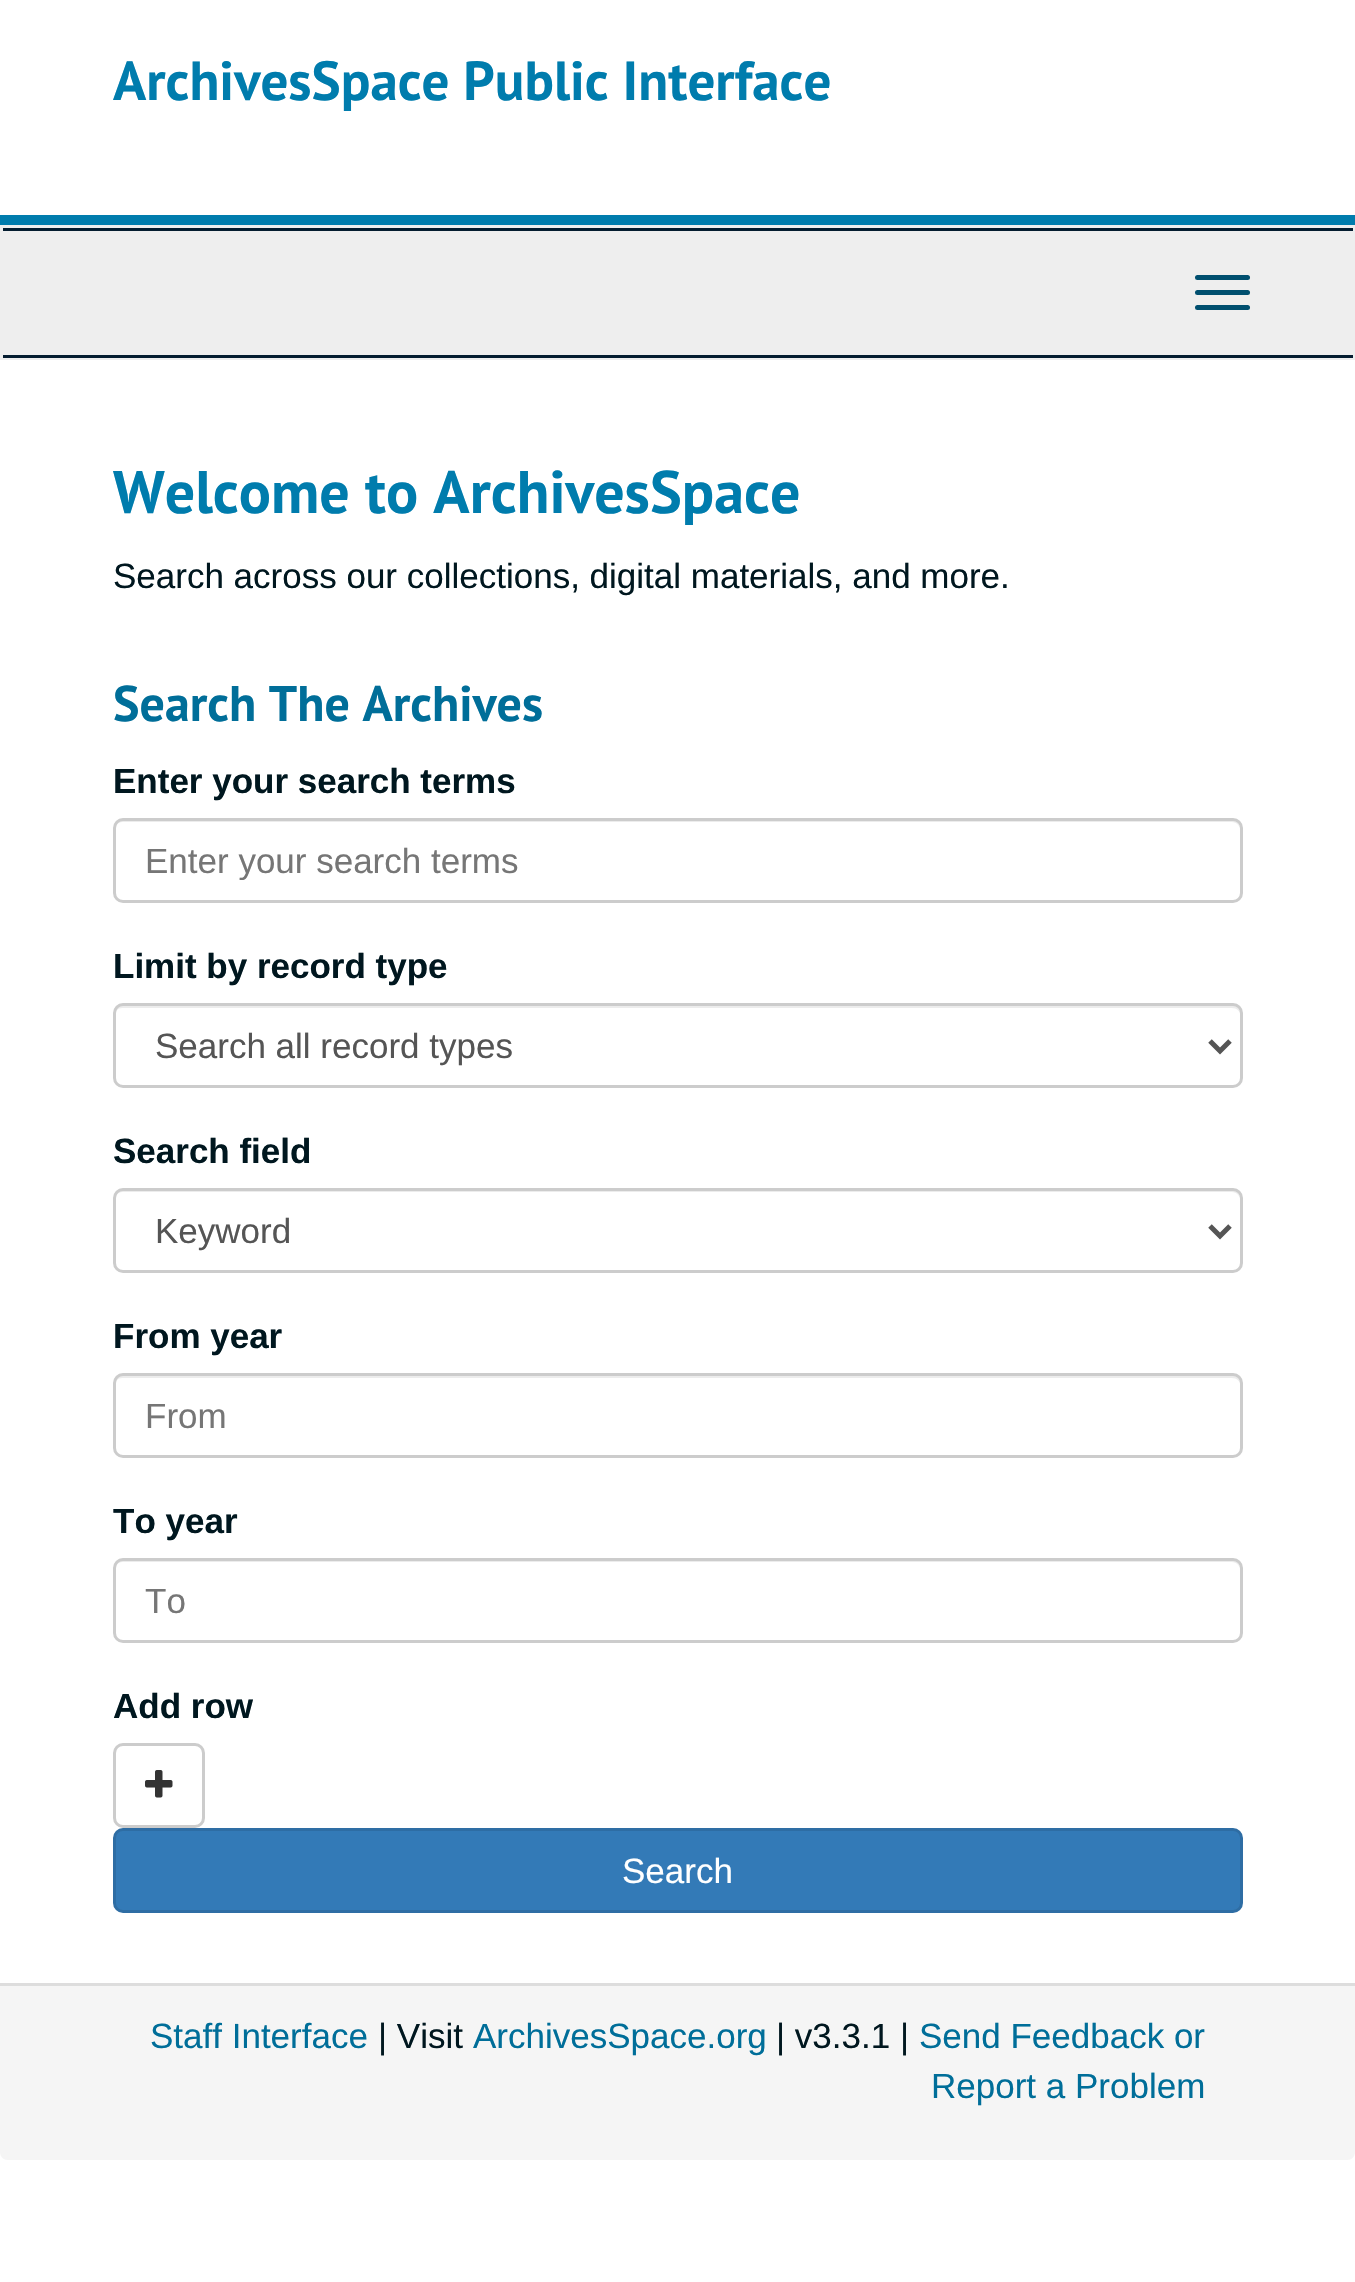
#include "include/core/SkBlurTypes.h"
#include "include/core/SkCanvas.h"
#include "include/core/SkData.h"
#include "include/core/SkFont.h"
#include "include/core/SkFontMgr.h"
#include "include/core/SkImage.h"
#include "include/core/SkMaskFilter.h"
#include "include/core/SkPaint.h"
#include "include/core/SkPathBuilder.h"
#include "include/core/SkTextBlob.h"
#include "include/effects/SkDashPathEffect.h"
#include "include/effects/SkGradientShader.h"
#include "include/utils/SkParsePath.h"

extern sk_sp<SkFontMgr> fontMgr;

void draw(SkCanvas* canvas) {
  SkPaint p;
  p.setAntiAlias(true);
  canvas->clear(SK_ColorWHITE);
  p.setColor(SkColorSetRGB(0, 124, 173));
  canvas->drawRect(SkRect::MakeLTRB(0, 215, 1355, 225), p);
  p.setColor(SkColorSetRGB(238, 238, 238));
  canvas->drawRect(SkRect::MakeLTRB(0, 225, 1355, 360), p);
  p.setColor(SkColorSetRGB(4, 28, 47));
  canvas->drawRect(SkRect::MakeLTRB(3, 228, 1353, 231), p);
  canvas->drawRect(SkRect::MakeLTRB(3, 355, 1353, 358), p);
  p.setColor(SkColorSetRGB(0, 79, 111));
  canvas->drawRoundRect(SkRect::MakeLTRB(1195, 275, 1250, 280), 2.5f, 2.5f, p);
  canvas->drawRoundRect(SkRect::MakeLTRB(1195, 290, 1250, 295), 2.5f, 2.5f, p);
  canvas->drawRoundRect(SkRect::MakeLTRB(1195, 305, 1250, 310), 2.5f, 2.5f, p);
  p.setColor(SkColorSetRGB(236, 236, 236));
  canvas->drawPath(SkPathBuilder().moveTo(122, 822).lineTo(1232, 822).cubicTo(1237, 822, 1240, 826, 1240, 830).cubicTo(1240, 825, 1238, 820, 1232, 820).lineTo(123, 820).cubicTo(117, 820, 115, 825, 115, 830).cubicTo(115, 826, 118, 822, 122, 822).close().detach(), p);
  p.setStyle(SkPaint::kStroke_Style);
  p.setStrokeWidth(3);
  p.setColor(SkColorSetRGB(204, 204, 204));
  canvas->drawRoundRect(SkRect::MakeLTRB(114.5f, 819.5f, 1241.5f, 901.5f), 8.5f, 8.5f, p);
  p.setStyle(SkPaint::kFill_Style);
  p.setColor(SkColorSetRGB(236, 236, 236));
  canvas->drawPath(SkPathBuilder().moveTo(122, 1008).lineTo(1232, 1008).cubicTo(1237, 1008, 1240, 1011, 1240, 1015).cubicTo(1240, 1010, 1238, 1005, 1232, 1005).lineTo(123, 1005).cubicTo(117, 1005, 115, 1010, 115, 1015).cubicTo(115, 1011, 118, 1008, 122, 1008).close().detach(), p);
  p.setStyle(SkPaint::kStroke_Style);
  p.setColor(SkColorSetRGB(204, 204, 204));
  canvas->drawRoundRect(SkRect::MakeLTRB(114.5f, 1004.5f, 1241.5f, 1086.5f), 8.5f, 8.5f, p);
  p.setStrokeWidth(5);
  p.setColor(SkColorSetRGB(85, 85, 85));
  canvas->drawPath(SkPathBuilder().moveTo(1210, 1041).lineTo(1220, 1051).lineTo(1230, 1041).detach(), p);
  p.setStyle(SkPaint::kFill_Style);
  p.setColor(SkColorSetRGB(236, 236, 236));
  canvas->drawPath(SkPathBuilder().moveTo(122, 1192).lineTo(1232, 1192).cubicTo(1237, 1192, 1240, 1196, 1240, 1200).cubicTo(1240, 1195, 1238, 1190, 1232, 1190).lineTo(123, 1190).cubicTo(117, 1190, 115, 1195, 115, 1200).cubicTo(115, 1196, 118, 1192, 122, 1192).close().detach(), p);
  p.setStyle(SkPaint::kStroke_Style);
  p.setStrokeWidth(3);
  p.setColor(SkColorSetRGB(204, 204, 204));
  canvas->drawRoundRect(SkRect::MakeLTRB(114.5f, 1189.5f, 1241.5f, 1271.5f), 8.5f, 8.5f, p);
  p.setStrokeWidth(5);
  p.setColor(SkColorSetRGB(85, 85, 85));
  canvas->drawPath(SkPathBuilder().moveTo(1210, 1226).lineTo(1220, 1236).lineTo(1230, 1226).detach(), p);
  p.setStyle(SkPaint::kFill_Style);
  p.setColor(SkColorSetRGB(236, 236, 236));
  canvas->drawPath(SkPathBuilder().moveTo(122, 1378).lineTo(1232, 1378).cubicTo(1237, 1378, 1240, 1381, 1240, 1385).cubicTo(1240, 1380, 1238, 1375, 1232, 1375).lineTo(123, 1375).cubicTo(117, 1375, 115, 1380, 115, 1385).cubicTo(115, 1381, 118, 1378, 122, 1378).close().detach(), p);
  p.setStyle(SkPaint::kStroke_Style);
  p.setStrokeWidth(3);
  p.setColor(SkColorSetRGB(204, 204, 204));
  canvas->drawRoundRect(SkRect::MakeLTRB(114.5f, 1374.5f, 1241.5f, 1456.5f), 8.5f, 8.5f, p);
  p.setStyle(SkPaint::kFill_Style);
  p.setColor(SkColorSetRGB(236, 236, 236));
  canvas->drawPath(SkPathBuilder().moveTo(122, 1562).lineTo(1232, 1562).cubicTo(1237, 1562, 1240, 1566, 1240, 1570).cubicTo(1240, 1565, 1238, 1560, 1232, 1560).lineTo(123, 1560).cubicTo(117, 1560, 115, 1565, 115, 1570).cubicTo(115, 1566, 118, 1562, 122, 1562).close().detach(), p);
  p.setStyle(SkPaint::kStroke_Style);
  p.setColor(SkColorSetRGB(204, 204, 204));
  canvas->drawRoundRect(SkRect::MakeLTRB(114.5f, 1559.5f, 1241.5f, 1641.5f), 8.5f, 8.5f, p);
  canvas->drawRoundRect(SkRect::MakeLTRB(114.5f, 1744.5f, 203.5f, 1826.5f), 8.5f, 8.5f, p);
  canvas->drawImageRect(SkImages::DeferredFromEncodedData(SkData::MakeFromFileName("images/1.png")), SkRect::MakeLTRB(145, 1770, 173, 1798), SkSamplingOptions());
  p.setStyle(SkPaint::kFill_Style);
  p.setColor(SkColorSetRGB(51, 122, 183));
  canvas->drawRoundRect(SkRect::MakeLTRB(114.5f, 1829.5f, 1241.5f, 1911.5f), 8.5f, 8.5f, p);
  p.setStyle(SkPaint::kStroke_Style);
  p.setColor(SkColorSetRGB(46, 109, 164));
  canvas->drawRoundRect(SkRect::MakeLTRB(114.5f, 1829.5f, 1241.5f, 1911.5f), 8.5f, 8.5f, p);
  p.setStyle(SkPaint::kFill_Style);
  p.setColor(SkColorSetRGB(245, 245, 245));
  canvas->drawPath(SkPathBuilder().moveTo(0, 1983).lineTo(1355, 1983).lineTo(1355, 2152).cubicTo(1355, 2156.5f, 1351.5f, 2160, 1347, 2160).lineTo(8, 2160).cubicTo(3.5f, 2160, 0, 2156.5f, 0, 2152).close().detach(), p);
  p.setColor(SkColorSetRGB(221, 221, 221));
  canvas->drawRect(SkRect::MakeLTRB(0, 1983, 1355, 1986), p);
  SkFont font1(fontMgr->matchFamilyStyle("PT Sans", SkFontStyle::Bold()), 55);
  font1.setSubpixel(true);
  p.setColor(SkColorSetRGB(0, 124, 173));
  canvas->drawString("ArchivesSpace Public Interface", 113, 100, font1, p);
  SkFont font2(fontMgr->matchFamilyStyle("PT Sans", SkFontStyle::Bold()), 60);
  font2.setSubpixel(true);
  canvas->drawString("Welcome to ArchivesSpace", 113, 513, font2, p);
  SkFont font3(fontMgr->matchFamilyStyle("Liberation Sans", SkFontStyle::Normal()), 35);
  font3.setSubpixel(true);
  p.setColor(SkColorSetRGB(0, 23, 31));
  canvas->drawString("Search across our collections, digital materials, and more.", 113, 588, font3, p);
  SkFont font4(fontMgr->matchFamilyStyle("PT Sans", SkFontStyle::Bold()), 50);
  font4.setSubpixel(true);
  p.setColor(SkColorSetRGB(0, 110, 153));
  canvas->drawString("Search The Archives", 113, 721, font4, p);
  SkFont font5(fontMgr->matchFamilyStyle("Liberation Sans", SkFontStyle::Bold()), 35);
  font5.setSubpixel(true);
  p.setColor(SkColorSetRGB(0, 23, 31));
  canvas->drawString("Enter your search terms", 113, 793, font5, p);
  canvas->save();
  canvas->clipRect(SkRect::MakeLTRB(145, 840, 1210, 880));
  p.setColor(SkColorSetRGB(118, 118, 118));
  canvas->drawString("Enter your search terms", 145, 873, font3, p);
  canvas->restore();
  p.setColor(SkColorSetRGB(0, 23, 31));
  canvas->drawString("Limit by record type", 113, 978, font5, p);
  p.setColor(SkColorSetRGB(85, 85, 85));
  canvas->drawString("Search all record types", 155, 1058, font3, p);
  p.setColor(SkColorSetRGB(0, 23, 31));
  canvas->drawString("Search field", 113, 1163, font5, p);
  p.setColor(SkColorSetRGB(85, 85, 85));
  canvas->drawString("Keyword", 155, 1243, font3, p);
  p.setColor(SkColorSetRGB(0, 23, 31));
  canvas->drawString("From year", 113, 1348, font5, p);
  p.setColor(SkColorSetRGB(118, 118, 118));
  canvas->drawString("From", 145, 1428, font3, p);
  p.setColor(SkColorSetRGB(0, 23, 31));
  canvas->drawString("To year", 113, 1533, font5, p);
  p.setColor(SkColorSetRGB(118, 118, 118));
  canvas->drawString("To", 145, 1613, font3, p);
  p.setColor(SkColorSetRGB(0, 23, 31));
  canvas->drawString("Add row", 113, 1718, font5, p);
  p.setColor(SK_ColorWHITE);
  canvas->drawString("Search", 622, 1883, font3, p);
  p.setColor(SkColorSetRGB(0, 110, 153));
  canvas->drawString("Staff Interface", 150, 2048, font3, p);
  p.setColor(SkColorSetRGB(0, 23, 31));
  canvas->drawString("| Visit", 378, 2048, font3, p);
  p.setColor(SkColorSetRGB(0, 110, 153));
  canvas->drawString("ArchivesSpace.org", 473, 2048, font3, p);
  p.setColor(SkColorSetRGB(0, 23, 31));
  canvas->drawString("| v3.3.1 |", 776, 2048, font3, p);
  p.setColor(SkColorSetRGB(0, 110, 153));
  canvas->drawString("Send Feedback or", 919, 2048, font3, p);
  canvas->drawString("Report a Problem", 931, 2098, font3, p);
}
